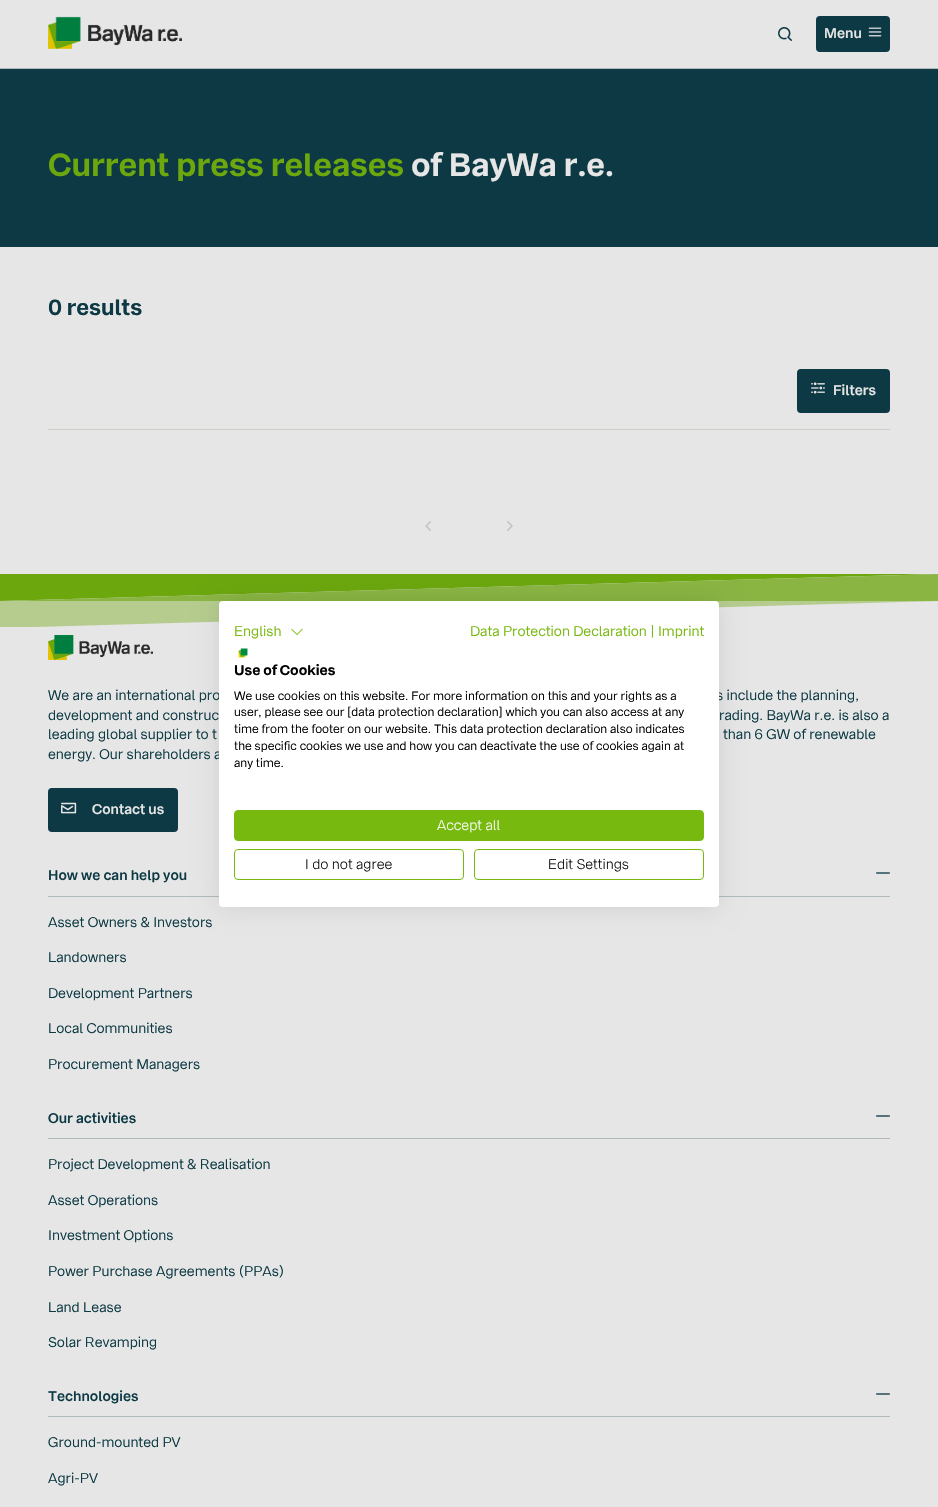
#include "include/core/SkBlurTypes.h"
#include "include/core/SkCanvas.h"
#include "include/core/SkData.h"
#include "include/core/SkFont.h"
#include "include/core/SkFontMgr.h"
#include "include/core/SkImage.h"
#include "include/core/SkMaskFilter.h"
#include "include/core/SkPaint.h"
#include "include/core/SkPathBuilder.h"
#include "include/core/SkTextBlob.h"
#include "include/effects/SkDashPathEffect.h"
#include "include/effects/SkGradientShader.h"
#include "include/utils/SkParsePath.h"

extern sk_sp<SkFontMgr> fontMgr;

void draw(SkCanvas* canvas) {
  SkPaint p;
  p.setAntiAlias(true);
  canvas->clear(SkColorSetRGB(230, 230, 230));
  p.setColor(SkColorSetRGB(175, 186, 189));
  canvas->drawRect(SkRect::MakeLTRB(0, 68, 938, 69), p);
  canvas->drawImageRect(SkImages::DeferredFromEncodedData(SkData::MakeFromFileName("images/1.png")), SkRect::MakeLTRB(48, 16, 182, 49), SkSamplingOptions());
  canvas->drawImageRect(SkImages::DeferredFromEncodedData(SkData::MakeFromFileName("images/2.png")), SkRect::MakeLTRB(778, 27, 792, 41), SkSamplingOptions());
  p.setColor(SkColorSetRGB(12, 57, 67));
  canvas->drawRoundRect(SkRect::MakeLTRB(817, 17, 889, 51), 3, 3, p);
  p.setStyle(SkPaint::kStroke_Style);
  p.setStrokeWidth(2);
  canvas->drawRoundRect(SkRect::MakeLTRB(817, 17, 889, 51), 3, 3, p);
  canvas->drawImageRect(SkImages::DeferredFromEncodedData(SkData::MakeFromFileName("images/3.png")), SkRect::MakeLTRB(868, 27, 882, 37), SkSamplingOptions());
  p.setStyle(SkPaint::kFill_Style);
  canvas->drawRect(SkRect::MakeLTRB(0, 69, 938, 247), p);
  p.setColor(SkColorSetRGB(204, 206, 197));
  canvas->drawRect(SkRect::MakeLTRB(48, 429, 890, 430), p);
  p.setColor(SkColorSetRGB(12, 57, 67));
  canvas->drawRoundRect(SkRect::MakeLTRB(798, 370, 889, 412), 3, 3, p);
  p.setStyle(SkPaint::kStroke_Style);
  canvas->drawRoundRect(SkRect::MakeLTRB(798, 370, 889, 412), 3, 3, p);
  canvas->drawImageRect(SkImages::DeferredFromEncodedData(SkData::MakeFromFileName("images/4.png")), SkRect::MakeLTRB(811, 382, 825, 394), SkSamplingOptions());
  canvas->drawImageRect(SkImages::DeferredFromEncodedData(SkData::MakeFromFileName("images/5.png")), SkRect::MakeLTRB(425, 521, 431, 531), SkSamplingOptions());
  canvas->drawImageRect(SkImages::DeferredFromEncodedData(SkData::MakeFromFileName("images/6.png")), SkRect::MakeLTRB(507, 521, 513, 531), SkSamplingOptions());
  p.setStyle(SkPaint::kFill_Style);
  p.setColor(SkColorSetRGB(108, 167, 14));
  canvas->drawPath(SkPathBuilder().moveTo(0, 574).lineTo(938, 574).lineTo(0, 601).close().detach(), p);
  p.setColor(SkColorSetRGB(138, 181, 67));
  canvas->drawPath(SkPathBuilder().moveTo(938, 601).lineTo(0, 601).lineTo(938, 574).close().detach(), p);
  canvas->save();
  canvas->clipRect(SkRect::MakeLTRB(0, 574, 938, 627));
  p.setColor(SkColorSetRGB(181, 204, 142));
  canvas->drawPath(SkPathBuilder().moveTo(0, 601).lineTo(938, 601).lineTo(0, 628).close().detach(), p);
  canvas->restore();
  canvas->drawImageRect(SkImages::DeferredFromEncodedData(SkData::MakeFromFileName("images/7.png")), SkRect::MakeLTRB(48, 635, 153, 660), SkSamplingOptions());
  p.setColor(SkColorSetRGB(12, 57, 67));
  canvas->drawRoundRect(SkRect::MakeLTRB(49, 789, 177, 831), 3, 3, p);
  p.setStyle(SkPaint::kStroke_Style);
  canvas->drawRoundRect(SkRect::MakeLTRB(49, 789, 177, 831), 3, 3, p);
  canvas->drawImageRect(SkImages::DeferredFromEncodedData(SkData::MakeFromFileName("images/8.png")), SkRect::MakeLTRB(61, 802, 77, 814), SkSamplingOptions());
  p.setStyle(SkPaint::kFill_Style);
  p.setColor(SkColorSetRGB(175, 186, 189));
  canvas->drawRect(SkRect::MakeLTRB(48, 896, 890, 897), p);
  canvas->drawImageRect(SkImages::DeferredFromEncodedData(SkData::MakeFromFileName("images/9.png")), SkRect::MakeLTRB(876, 872, 890, 874), SkSamplingOptions());
  canvas->drawRect(SkRect::MakeLTRB(48, 1138, 890, 1139), p);
  canvas->drawImageRect(SkImages::DeferredFromEncodedData(SkData::MakeFromFileName("images/9.png")), SkRect::MakeLTRB(876, 1115, 890, 1117), SkSamplingOptions());
  canvas->drawRect(SkRect::MakeLTRB(48, 1416, 890, 1417), p);
  canvas->drawImageRect(SkImages::DeferredFromEncodedData(SkData::MakeFromFileName("images/9.png")), SkRect::MakeLTRB(876, 1393, 890, 1395), SkSamplingOptions());
  p.setColor(SkColorSetARGB(26, 0, 0, 0));
  p.setMaskFilter(SkMaskFilter::MakeBlur(kNormal_SkBlurStyle, 12));
  canvas->drawRoundRect(SkRect::MakeLTRB(219, 601, 719, 907), 4, 4, p);
  p.setMaskFilter(nullptr);
  SkFont font1(fontMgr->matchFamilyStyle("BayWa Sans", SkFontStyle(600, SkFontStyle::kNormal_Width, SkFontStyle::kUpright_Slant)), 14);
  font1.setSubpixel(true);
  p.setColor(SkColorSetRGB(230, 230, 230));
  canvas->drawString("Menu", 824, 38, font1, p);
  SkFont font2(fontMgr->matchFamilyStyle("BayWa Sans", SkFontStyle::Bold()), 32);
  font2.setSubpixel(true);
  p.setColor(SkColorSetRGB(108, 167, 14));
  canvas->drawString("Current press releases", 48, 176, font2, p);
  p.setColor(SkColorSetRGB(230, 230, 230));
  canvas->drawString("of BayWa r.e.", 411, 176, font2, p);
  SkFont font3(fontMgr->matchFamilyStyle("BayWa Sans", SkFontStyle::Bold()), 22);
  font3.setSubpixel(true);
  p.setColor(SkColorSetRGB(12, 57, 67));
  canvas->drawString("0 results", 48, 315, font3, p);
  p.setColor(SkColorSetRGB(230, 230, 230));
  canvas->drawString("Filters", 833, 395, font1, p);
  SkFont font4(fontMgr->matchFamilyStyle("BayWa Sans", SkFontStyle::Normal()), 14);
  font4.setSubpixel(true);
  p.setColor(SkColorSetRGB(12, 57, 67));
  canvas->drawString("We are an international pro", 48, 700, font4, p);
  canvas->drawString("s include the planning,", 716, 700, font4, p);
  canvas->drawString("development and construc", 48, 720, font4, p);
  canvas->drawString("rading. BayWa r.e. is also a", 719, 720, font4, p);
  canvas->drawString("leading global supplier to t", 48, 739, font4, p);
  canvas->drawString("than 6 GW of renewable", 723, 739, font4, p);
  canvas->drawString("energy. Our shareholders a", 48, 759, font4, p);
  p.setColor(SkColorSetRGB(230, 230, 230));
  canvas->drawString("Contact us", 92, 814, font1, p);
  p.setColor(SkColorSetRGB(12, 57, 67));
  canvas->drawString("How we can help you", 48, 880, font1, p);
  canvas->drawString("Asset Owners & Investors", 48, 927, font4, p);
  canvas->drawString("Landowners", 48, 962, font4, p);
  canvas->drawString("Development Partners", 48, 998, font4, p);
  canvas->drawString("Local Communities", 48, 1033, font4, p);
  canvas->drawString("Procurement Managers", 48, 1069, font4, p);
  canvas->drawString("Our activities", 48, 1123, font1, p);
  canvas->drawString("Project Development & Realisation", 48, 1169, font4, p);
  canvas->drawString("Asset Operations", 48, 1205, font4, p);
  canvas->drawString("Investment Options", 48, 1240, font4, p);
  canvas->drawString("Power Purchase Agreements (PPAs)", 48, 1276, font4, p);
  canvas->drawString("Land Lease", 48, 1312, font4, p);
  canvas->drawString("Solar Revamping", 48, 1347, font4, p);
  canvas->drawString("Technologies", 48, 1401, font1, p);
  canvas->drawString("Ground-mounted PV", 48, 1447, font4, p);
  canvas->drawString("Agri-PV", 48, 1483, font4, p);
  p.setColor(SK_ColorWHITE);
  canvas->drawRoundRect(SkRect::MakeLTRB(219, 601, 719, 907), 4, 4, p);
  p.setColor(SkColorSetRGB(120, 185, 15));
  canvas->drawString("English", 234, 636, font4, p);
  canvas->drawImageRect(SkImages::DeferredFromEncodedData(SkData::MakeFromFileName("images/10.png")), SkRect::MakeLTRB(291, 628, 303, 635), SkSamplingOptions());
  canvas->drawString("Data Protection Declaration | Imprint", 470, 636, font4, p);
  canvas->drawImageRect(SkImages::DeferredFromEncodedData(SkData::MakeFromFileName("images/11.png")), SkRect::MakeLTRB(238, 648, 248, 658), SkSamplingOptions());
  SkFont font5(fontMgr->matchFamilyStyle("BayWa Sans", SkFontStyle::Bold()), 14);
  font5.setSubpixel(true);
  p.setColor(SK_ColorBLACK);
  canvas->drawString("Use of Cookies", 234, 675, font5, p);
  SkFont font6(fontMgr->matchFamilyStyle("BayWa Sans", SkFontStyle::Normal()), 12);
  font6.setSubpixel(true);
  canvas->drawString("We use cookies on this website. For more information on this and your rights as a", 234, 700, font6, p);
  canvas->drawString("user, please see our [data protection declaration] which you can also access at any", 234, 716, font6, p);
  canvas->drawString("time from the footer on our website. This data protection declaration also indicates", 234, 733, font6, p);
  canvas->drawString("the specific cookies we use and how you can deactivate the use of cookies again at", 234, 750, font6, p);
  canvas->drawString("any time.", 234, 767, font6, p);
  p.setColor(SkColorSetRGB(120, 185, 15));
  canvas->drawRoundRect(SkRect::MakeLTRB(234.5f, 810.5f, 703.5f, 840.5f), 3.5f, 3.5f, p);
  p.setStyle(SkPaint::kStroke_Style);
  p.setStrokeWidth(1);
  canvas->drawRoundRect(SkRect::MakeLTRB(234.5f, 810.5f, 703.5f, 840.5f), 3.5f, 3.5f, p);
  SkFont font7(fontMgr->matchFamilyStyle("BayWa Sans", SkFontStyle(300, SkFontStyle::kNormal_Width, SkFontStyle::kUpright_Slant)), 14);
  font7.setSubpixel(true);
  p.setStyle(SkPaint::kFill_Style);
  p.setColor(SK_ColorWHITE);
  canvas->drawString("Accept all", 437, 830, font7, p);
  p.setStyle(SkPaint::kStroke_Style);
  p.setColor(SkColorSetRGB(120, 185, 15));
  canvas->drawRoundRect(SkRect::MakeLTRB(234.5f, 849.5f, 463.5f, 879.5f), 3.5f, 3.5f, p);
  p.setStyle(SkPaint::kFill_Style);
  p.setColor(SK_ColorBLACK);
  canvas->drawString("I do not agree", 305, 869, font7, p);
  p.setStyle(SkPaint::kStroke_Style);
  p.setColor(SkColorSetRGB(120, 185, 15));
  canvas->drawRoundRect(SkRect::MakeLTRB(474.5f, 849.5f, 703.5f, 879.5f), 3.5f, 3.5f, p);
  p.setStyle(SkPaint::kFill_Style);
  p.setColor(SK_ColorBLACK);
  canvas->drawString("Edit Settings", 548, 869, font7, p);
}
